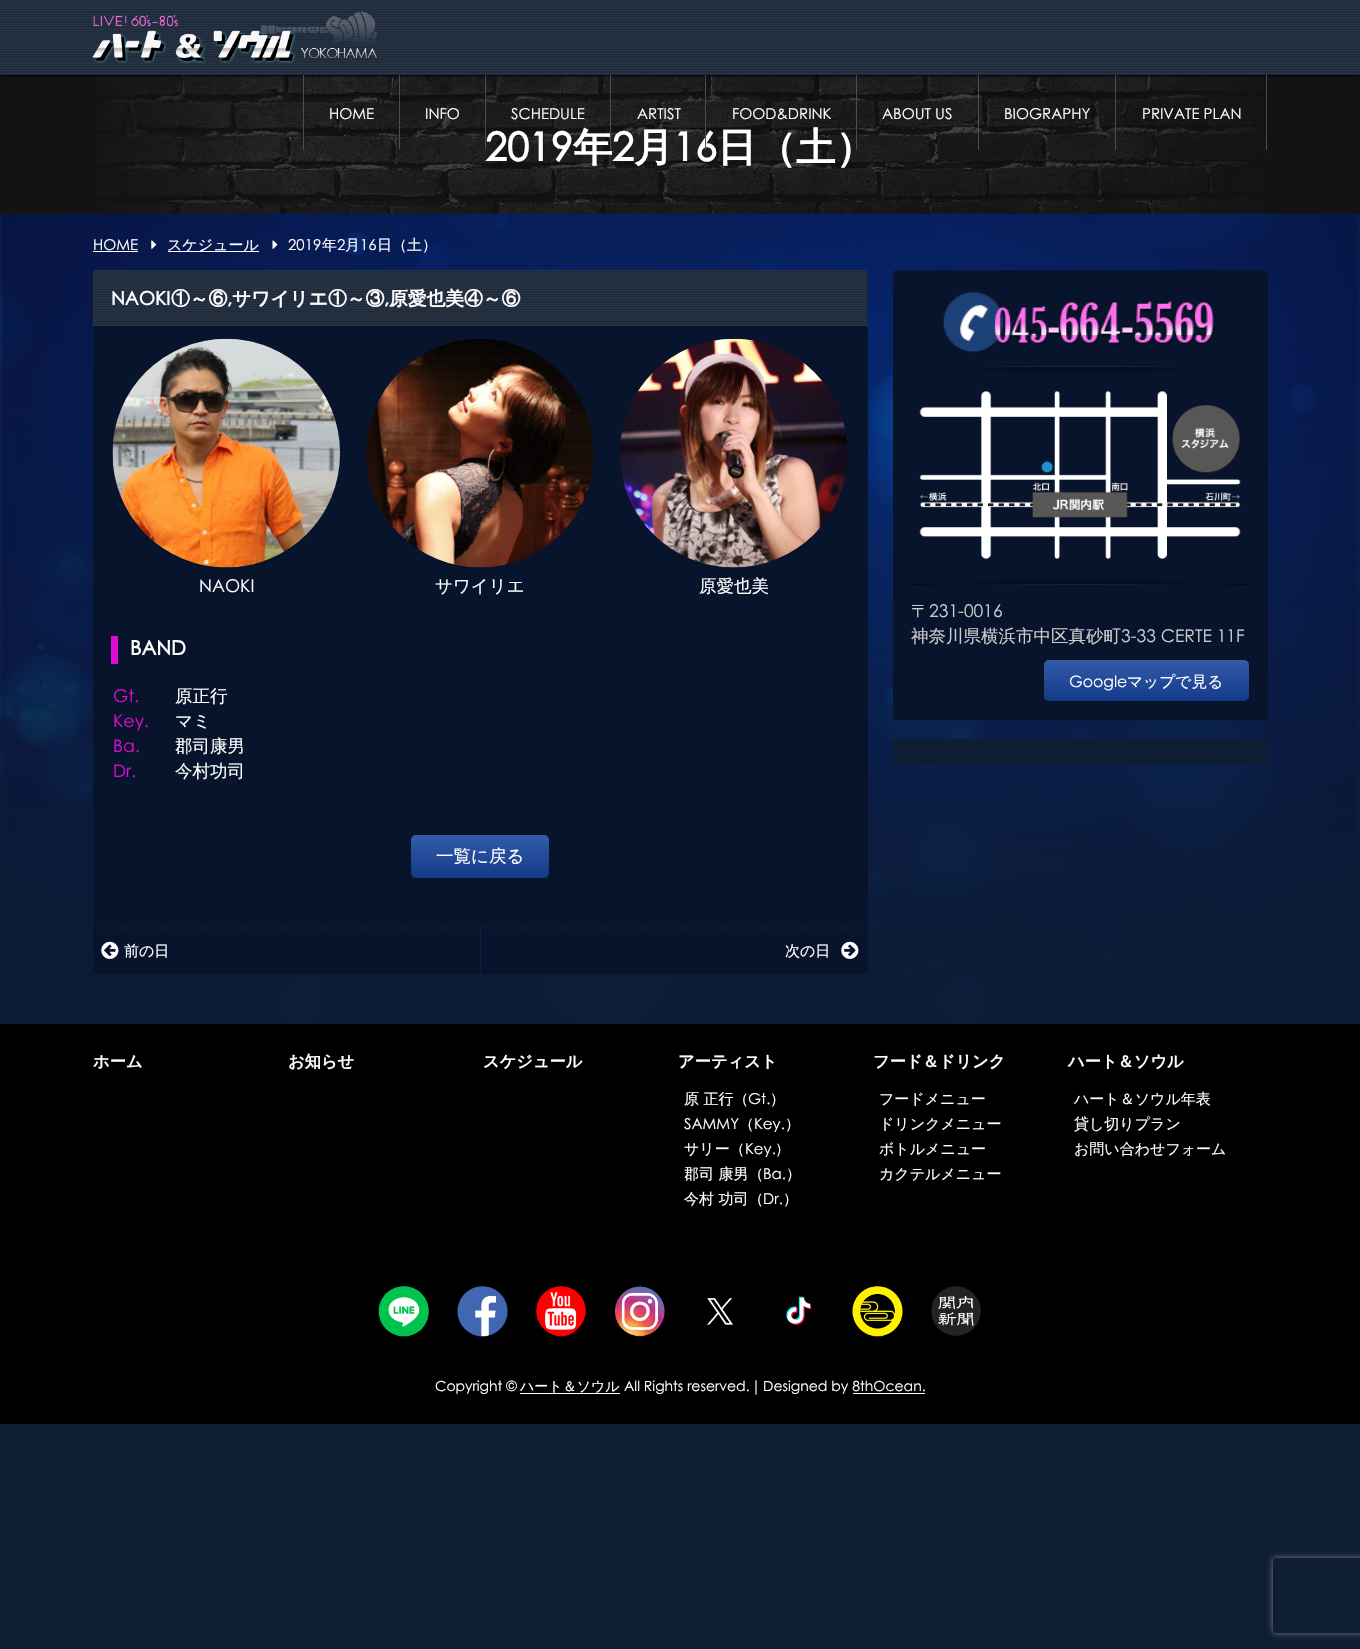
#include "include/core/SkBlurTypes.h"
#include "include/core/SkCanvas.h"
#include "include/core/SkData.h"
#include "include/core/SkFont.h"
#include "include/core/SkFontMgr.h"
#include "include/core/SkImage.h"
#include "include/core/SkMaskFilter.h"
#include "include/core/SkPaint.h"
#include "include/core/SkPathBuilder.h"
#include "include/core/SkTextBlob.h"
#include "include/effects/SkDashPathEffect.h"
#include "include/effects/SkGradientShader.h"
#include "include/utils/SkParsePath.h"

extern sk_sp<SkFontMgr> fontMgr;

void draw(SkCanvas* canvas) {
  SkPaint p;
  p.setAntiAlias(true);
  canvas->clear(SkColorSetRGB(13, 29, 50));
  p.setColor(SkColorSetRGB(19, 19, 19));
  canvas->drawRect(SkRect::MakeLTRB(0, 75, 1360, 214), p);
  canvas->drawImageRect(SkImages::DeferredFromEncodedData(SkData::MakeFromFileName("images/3.png")), SkRect::MakeLTRB(95, 75, 1265, 214), SkSamplingOptions());
  p.setColor(SK_ColorBLACK);
  p.setMaskFilter(SkMaskFilter::MakeBlur(kNormal_SkBlurStyle, 1));
  canvas->drawRect(SkRect::MakeLTRB(0, 1, 1360, 76), p);
  p.setMaskFilter(nullptr);
  canvas->drawImageRect(SkImages::DeferredFromEncodedData(SkData::MakeFromFileName("images/1.png")), SkRect::MakeLTRB(0, 0, 1360, 75), SkSamplingOptions());
  canvas->drawImageRect(SkImages::DeferredFromEncodedData(SkData::MakeFromFileName("images/2.png")), SkRect::MakeLTRB(92, 11, 378, 64), SkSamplingOptions());
  p.setColor(SkColorSetRGB(62, 79, 102));
  canvas->drawRect(SkRect::MakeLTRB(1266, 75, 1267, 150), p);
  canvas->drawRect(SkRect::MakeLTRB(303, 75, 304, 150), p);
  canvas->drawRect(SkRect::MakeLTRB(399, 75, 400, 150), p);
  canvas->drawRect(SkRect::MakeLTRB(485, 75, 486, 150), p);
  canvas->drawRect(SkRect::MakeLTRB(856, 75, 857, 150), p);
  canvas->drawRect(SkRect::MakeLTRB(978, 75, 979, 150), p);
  canvas->drawRect(SkRect::MakeLTRB(1115, 75, 1116, 150), p);
  canvas->drawImageRect(SkImages::DeferredFromEncodedData(SkData::MakeFromFileName("images/4.png")), SkRect::MakeLTRB(0, 213, 1360, 1023), SkSamplingOptions());
  p.setColor(SK_ColorWHITE);
  canvas->drawRect(SkRect::MakeLTRB(93, 251, 138, 252), p);
  canvas->drawImageRect(SkImages::DeferredFromEncodedData(SkData::MakeFromFileName("images/5.png")), SkRect::MakeLTRB(151, 240, 156, 249), SkSamplingOptions());
  canvas->drawRect(SkRect::MakeLTRB(168, 251, 259, 252), p);
  canvas->drawImageRect(SkImages::DeferredFromEncodedData(SkData::MakeFromFileName("images/6.png")), SkRect::MakeLTRB(272, 240, 278, 249), SkSamplingOptions());
  canvas->drawImageRect(SkImages::DeferredFromEncodedData(SkData::MakeFromFileName("images/7.png")), SkRect::MakeLTRB(92, 270, 868, 326), SkSamplingOptions());
  p.setColor(SkColorSetRGB(7, 20, 44));
  canvas->drawRoundRect(SkRect::MakeLTRB(93, 326, 868, 974), 4, 4, p);
  canvas->drawImageRect(SkImages::DeferredFromEncodedData(SkData::MakeFromFileName("images/8.png")), SkRect::MakeLTRB(112, 338, 340, 568), SkSamplingOptions());
  canvas->drawImageRect(SkImages::DeferredFromEncodedData(SkData::MakeFromFileName("images/9.png")), SkRect::MakeLTRB(366, 339, 594, 568), SkSamplingOptions());
  canvas->drawImageRect(SkImages::DeferredFromEncodedData(SkData::MakeFromFileName("images/10.png")), SkRect::MakeLTRB(620, 338, 848, 568), SkSamplingOptions());
  p.setColor(SkColorSetRGB(224, 11, 212));
  canvas->drawRect(SkRect::MakeLTRB(111, 636, 118, 664), p);
  {
    const SkColor colors[] = {SkColorSetRGB(52, 90, 170), SkColorSetRGB(20, 58, 138)};
    const float stops[] = {0, 1};
    const SkPoint ends[] = {{480, 835}, {480, 878}};
    p.setShader(SkGradientShader::MakeLinear(ends, colors, stops, 2, SkTileMode::kClamp));
    p.setAlpha(255);
  }
  canvas->drawRoundRect(SkRect::MakeLTRB(411, 835, 549, 878), 5, 5, p);
  p.setStyle(SkPaint::kStroke_Style);
  p.setStrokeWidth(1.2f);
  p.setShader(nullptr);
  p.setColor(SkColorSetRGB(14, 41, 90));
  p.setPathEffect(SkDashPathEffect::Make({{1.25f, 1.25f}}, 0));
  canvas->drawPath(SkPathBuilder().moveTo(92.5f, 928).lineTo(867.5f, 928).detach(), p);
  p.setPathEffect(nullptr);
  canvas->drawImageRect(SkImages::DeferredFromEncodedData(SkData::MakeFromFileName("images/11.png")), SkRect::MakeLTRB(101, 941, 119, 959), SkSamplingOptions());
  p.setPathEffect(SkDashPathEffect::Make({{1.25f, 1.25f}}, 0));
  canvas->drawPath(SkPathBuilder().moveTo(480.5f, 929).lineTo(480.5f, 974).detach(), p);
  p.setPathEffect(nullptr);
  canvas->drawImageRect(SkImages::DeferredFromEncodedData(SkData::MakeFromFileName("images/12.png")), SkRect::MakeLTRB(841, 941, 859, 959), SkSamplingOptions());
  p.setStyle(SkPaint::kFill_Style);
  p.setColor(SkColorSetRGB(7, 20, 44));
  canvas->drawRoundRect(SkRect::MakeLTRB(893, 270, 1268, 720), 4, 4, p);
  canvas->drawImageRect(SkImages::DeferredFromEncodedData(SkData::MakeFromFileName("images/13.png")), SkRect::MakeLTRB(943, 291, 1214, 353), SkSamplingOptions());
  canvas->drawImageRect(SkImages::DeferredFromEncodedData(SkData::MakeFromFileName("images/14.png")), SkRect::MakeLTRB(911, 366, 1249, 585), SkSamplingOptions());
  {
    const SkColor colors[] = {SkColorSetRGB(52, 90, 170), SkColorSetRGB(20, 58, 138)};
    const float stops[] = {0, 1};
    const SkPoint ends[] = {{1146, 660}, {1146, 701}};
    p.setShader(SkGradientShader::MakeLinear(ends, colors, stops, 2, SkTileMode::kClamp));
    p.setAlpha(255);
  }
  canvas->drawRoundRect(SkRect::MakeLTRB(1044, 660, 1249, 701), 5, 5, p);
  p.setShader(nullptr);
  p.setColor(SkColorSetRGB(13, 29, 50));
  canvas->drawRect(SkRect::MakeLTRB(893, 739, 1268, 764), p);
  p.setColor(SK_ColorBLACK);
  canvas->drawRect(SkRect::MakeLTRB(0, 1024, 1360, 1424), p);
  canvas->drawImageRect(SkImages::DeferredFromEncodedData(SkData::MakeFromFileName("images/15.png")), SkRect::MakeLTRB(378, 1286, 429, 1337), SkSamplingOptions());
  canvas->drawImageRect(SkImages::DeferredFromEncodedData(SkData::MakeFromFileName("images/16.png")), SkRect::MakeLTRB(457, 1286, 508, 1337), SkSamplingOptions());
  canvas->drawImageRect(SkImages::DeferredFromEncodedData(SkData::MakeFromFileName("images/17.png")), SkRect::MakeLTRB(536, 1286, 586, 1337), SkSamplingOptions());
  canvas->drawImageRect(SkImages::DeferredFromEncodedData(SkData::MakeFromFileName("images/18.png")), SkRect::MakeLTRB(615, 1286, 665, 1337), SkSamplingOptions());
  canvas->drawImageRect(SkImages::DeferredFromEncodedData(SkData::MakeFromFileName("images/19.png")), SkRect::MakeLTRB(707, 1298, 734, 1325), SkSamplingOptions());
  canvas->drawImageRect(SkImages::DeferredFromEncodedData(SkData::MakeFromFileName("images/20.png")), SkRect::MakeLTRB(785, 1296, 812, 1325), SkSamplingOptions());
  canvas->drawImageRect(SkImages::DeferredFromEncodedData(SkData::MakeFromFileName("images/21.png")), SkRect::MakeLTRB(852, 1286, 903, 1337), SkSamplingOptions());
  canvas->drawImageRect(SkImages::DeferredFromEncodedData(SkData::MakeFromFileName("images/22.png")), SkRect::MakeLTRB(931, 1286, 981, 1336), SkSamplingOptions());
  p.setColor(SK_ColorWHITE);
  canvas->drawRect(SkRect::MakeLTRB(520, 1393, 620, 1394), p);
  canvas->drawRect(SkRect::MakeLTRB(853, 1393, 925, 1394), p);
  canvas->save();
  canvas->clipPath(SkPathBuilder(SkPathFillType::kEvenOdd).moveTo(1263, 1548).lineTo(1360, 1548).lineTo(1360, 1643).lineTo(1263, 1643).close().moveTo(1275.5f, 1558).lineTo(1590.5f, 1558).cubicTo(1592, 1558, 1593, 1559, 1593, 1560.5f).lineTo(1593, 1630.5f).cubicTo(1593, 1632, 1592, 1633, 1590.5f, 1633).lineTo(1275.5f, 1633).cubicTo(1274, 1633, 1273, 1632, 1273, 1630.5f).lineTo(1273, 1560.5f).cubicTo(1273, 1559, 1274, 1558, 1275.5f, 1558).close().detach(), true);
  p.setColor(SkColorSetRGB(128, 128, 128));
  p.setMaskFilter(SkMaskFilter::MakeBlur(kNormal_SkBlurStyle, 3));
  canvas->drawRoundRect(SkRect::MakeLTRB(1273, 1558, 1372, 1633), 2.5f, 2.5f, p);
  p.setMaskFilter(nullptr);
  canvas->restore();
  SkFont font1(fontMgr->matchFamilyStyle("Century Gothic", SkFontStyle::Normal()), 15);
  font1.setSubpixel(true);
  p.setColor(SK_ColorWHITE);
  canvas->drawString("HOME", 329, 119, font1, p);
  canvas->drawString("INFO", 425, 119, font1, p);
  canvas->drawString("SCHEDULE", 511, 119, font1, p);
  canvas->drawString("ARTIST", 637, 119, font1, p);
  canvas->drawString("FOOD&DRINK", 732, 119, font1, p);
  canvas->drawString("ABOUT US", 882, 119, font1, p);
  canvas->drawString("BIOGRAPHY", 1004, 119, font1, p);
  canvas->drawString("PRIVATE PLAN", 1142, 119, font1, p);
  SkFont font2(fontMgr->matchFamilyStyle("Century Gothic", SkFontStyle::Bold()), 39.5f);
  font2.setSubpixel(true);
  canvas->drawString("2019", 485, 161, font2, p);
  SkFont font3(fontMgr->matchFamilyStyle("WenQuanYi Zen Hei", SkFontStyle::Bold()), 39.5f);
  font3.setSubpixel(true);
  canvas->drawString("年", 573, 161, font3, p);
  p.setColor(SkColorSetRGB(62, 79, 102));
  canvas->drawRect(SkRect::MakeLTRB(610, 75, 611, 150), p);
  p.setColor(SK_ColorWHITE);
  canvas->drawString("2", 612, 161, font2, p);
  canvas->drawString("月", 634, 161, font3, p);
  canvas->drawString("16", 673, 161, font2, p);
  p.setColor(SkColorSetRGB(62, 79, 102));
  canvas->drawRect(SkRect::MakeLTRB(705, 75, 706, 150), p);
  p.setColor(SK_ColorWHITE);
  canvas->drawString("日（土）", 717, 161, font3, p);
  canvas->drawString("HOME", 93, 250, font1, p);
  SkFont font4(fontMgr->matchFamilyStyle("WenQuanYi Zen Hei", SkFontStyle(500, SkFontStyle::kNormal_Width, SkFontStyle::kUpright_Slant)), 15);
  font4.setSubpixel(true);
  canvas->drawString("スケジュール", 167, 250, font4, p);
  canvas->drawString("2019", 288, 250, font1, p);
  canvas->drawString("年", 322, 250, font4, p);
  canvas->drawString("2", 337, 250, font1, p);
  canvas->drawString("月", 345, 250, font4, p);
  canvas->drawString("16", 360, 250, font1, p);
  canvas->drawString("日（土）", 377, 250, font4, p);
  SkFont font5(fontMgr->matchFamilyStyle("Century Gothic", SkFontStyle::Bold()), 18.75f);
  font5.setSubpixel(true);
  canvas->drawString("NAOKI", 111, 305, font5, p);
  SkFont font6(fontMgr->matchFamilyStyle("WenQuanYi Zen Hei", SkFontStyle::Bold()), 18.75f);
  font6.setSubpixel(true);
  canvas->drawString("①～⑥", 171, 305, font6, p);
  canvas->drawString(",", 227, 305, font5, p);
  canvas->drawString("サワイリエ①～③", 232, 305, font6, p);
  canvas->drawString(",", 384, 305, font5, p);
  canvas->drawString("原愛也美④～⑥", 389, 305, font6, p);
  SkFont font7(fontMgr->matchFamilyStyle("Century Gothic", SkFontStyle::Normal()), 17.5f);
  font7.setSubpixel(true);
  canvas->drawString("NAOKI", 199, 592, font7, p);
  SkFont font8(fontMgr->matchFamilyStyle("WenQuanYi Zen Hei", SkFontStyle(500, SkFontStyle::kNormal_Width, SkFontStyle::kUpright_Slant)), 17.5f);
  font8.setSubpixel(true);
  canvas->drawString("サワイリエ", 435, 592, font8, p);
  canvas->drawString("原愛也美", 699, 592, font8, p);
  SkFont font9(fontMgr->matchFamilyStyle("Century Gothic", SkFontStyle::Bold()), 20);
  font9.setSubpixel(true);
  canvas->drawString("BAND", 130, 655, font9, p);
  p.setColor(SkColorSetRGB(224, 11, 212));
  canvas->drawString("Gt.", 113, 702, font7, p);
  canvas->drawString("Key.", 113, 727, font7, p);
  canvas->drawString("Ba.", 113, 752, font7, p);
  canvas->drawString("Dr.", 113, 777, font7, p);
  p.setColor(SK_ColorWHITE);
  canvas->drawString("原正行", 175, 702, font8, p);
  canvas->drawString("マミ", 175, 727, font8, p);
  canvas->drawString("郡司康男", 175, 752, font8, p);
  canvas->drawString("今村功司", 175, 777, font8, p);
  canvas->drawString("一覧に戻る", 436, 862, font8, p);
  canvas->drawString("前の日", 124, 956, font4, p);
  canvas->drawString("次の日", 785, 956, font4, p);
  p.setColor(SkColorSetRGB(204, 204, 204));
  canvas->drawString("〒", 911, 617, font8, p);
  canvas->drawString("231-0016", 929, 617, font7, p);
  canvas->drawString("神奈川県横浜市中区真砂町", 911, 642, font8, p);
  canvas->drawString("3-33 CERTE 11F", 1121, 642, font7, p);
  SkFont font10(fontMgr->matchFamilyStyle("Century Gothic", SkFontStyle::Normal()), 15.75f);
  font10.setSubpixel(true);
  p.setColor(SK_ColorWHITE);
  canvas->drawString("Google", 1069, 687, font10, p);
  SkFont font11(fontMgr->matchFamilyStyle("WenQuanYi Zen Hei", SkFontStyle(500, SkFontStyle::kNormal_Width, SkFontStyle::kUpright_Slant)), 15.75f);
  font11.setSubpixel(true);
  canvas->drawString("マップで見る", 1127, 687, font11, p);
  SkFont font12(fontMgr->matchFamilyStyle("WenQuanYi Zen Hei", SkFontStyle::Bold()), 16.25f);
  font12.setSubpixel(true);
  canvas->drawString("ホーム", 93, 1067, font12, p);
  canvas->drawString("お知らせ", 288, 1067, font12, p);
  canvas->drawString("スケジュール", 483, 1067, font12, p);
  canvas->drawString("アーティスト", 678, 1067, font12, p);
  canvas->drawString("原 正行（", 684, 1104, font4, p);
  canvas->drawString("Gt.", 748, 1104, font1, p);
  canvas->drawString("）", 770, 1104, font4, p);
  canvas->drawString("SAMMY", 684, 1129, font1, p);
  canvas->drawString("（", 739, 1129, font4, p);
  canvas->drawString("Key.", 754, 1129, font1, p);
  canvas->drawString("）", 785, 1129, font4, p);
  canvas->drawString("サリー（", 684, 1154, font4, p);
  canvas->drawString("Key.", 745, 1154, font1, p);
  canvas->drawString("）", 775, 1154, font4, p);
  canvas->drawString("郡司 康男（", 684, 1179, font4, p);
  canvas->drawString("Ba.", 763, 1179, font1, p);
  canvas->drawString("）", 786, 1179, font4, p);
  canvas->drawString("今村 功司（", 684, 1204, font4, p);
  canvas->drawString("Dr.", 763, 1204, font1, p);
  canvas->drawString("）", 783, 1204, font4, p);
  canvas->drawString("フード＆ドリンク", 873, 1067, font12, p);
  canvas->drawString("フードメニュー", 879, 1104, font4, p);
  canvas->drawString("ドリンクメニュー", 879, 1129, font4, p);
  canvas->drawString("ボトルメニュー", 879, 1154, font4, p);
  canvas->drawString("カクテルメニュー", 879, 1179, font4, p);
  canvas->drawString("ハート＆ソウル", 1068, 1067, font12, p);
  canvas->drawString("ハート＆ソウル年表", 1074, 1104, font4, p);
  canvas->drawString("貸し切りプラン", 1074, 1129, font4, p);
  canvas->drawString("お問い合わせフォーム", 1074, 1154, font4, p);
  SkFont font13(fontMgr->matchFamilyStyle("Century Gothic", SkFontStyle::Normal()), 14);
  font13.setSubpixel(true);
  canvas->drawString("Copyright ©", 435, 1391, font13, p);
  SkFont font14(fontMgr->matchFamilyStyle("WenQuanYi Zen Hei", SkFontStyle(500, SkFontStyle::kNormal_Width, SkFontStyle::kUpright_Slant)), 14);
  font14.setSubpixel(true);
  canvas->drawString("ハート＆ソウル", 520, 1391, font14, p);
  canvas->drawString("All Rights reserved.", 624, 1391, font13, p);
  canvas->drawString("｜", 749, 1391, font14, p);
  canvas->drawString("Designed by 8thOcean.", 763, 1391, font13, p);
}
